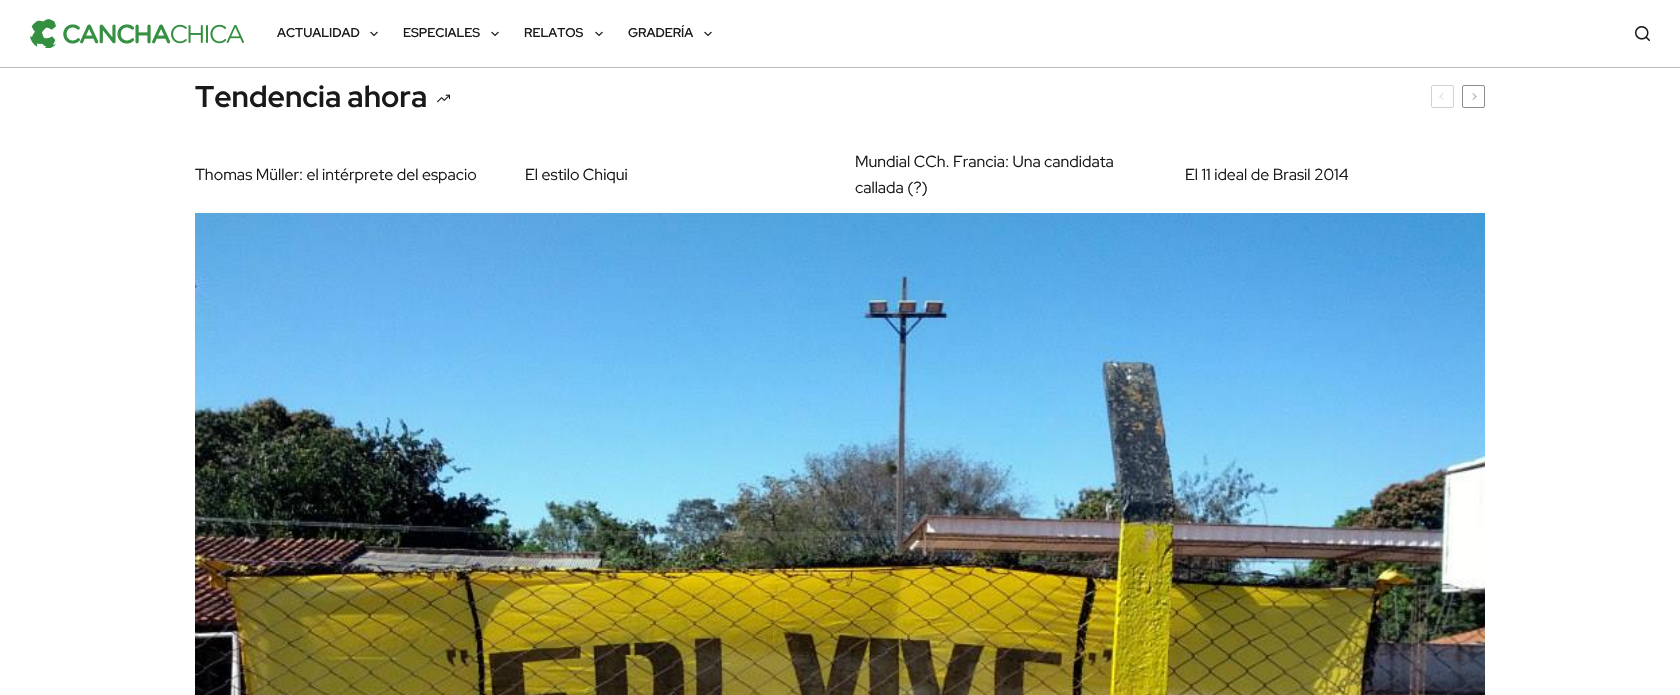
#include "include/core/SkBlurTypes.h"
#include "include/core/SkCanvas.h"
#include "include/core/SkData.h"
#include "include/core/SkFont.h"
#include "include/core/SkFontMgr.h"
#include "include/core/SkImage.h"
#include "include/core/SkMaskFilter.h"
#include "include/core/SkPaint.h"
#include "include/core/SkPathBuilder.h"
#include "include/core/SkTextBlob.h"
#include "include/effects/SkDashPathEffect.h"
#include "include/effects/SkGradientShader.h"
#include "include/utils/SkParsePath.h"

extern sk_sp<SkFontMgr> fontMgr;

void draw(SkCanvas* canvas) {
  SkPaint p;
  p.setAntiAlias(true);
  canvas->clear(SK_ColorWHITE);
  p.setColor(SkColorSetRGB(187, 187, 187));
  canvas->drawRect(SkRect::MakeLTRB(0, 67, 1680, 68), p);
  canvas->drawImageRect(SkImages::DeferredFromEncodedData(SkData::MakeFromFileName("images/1.png")), SkRect::MakeLTRB(30, 19, 244, 48), SkSamplingOptions());
  canvas->drawImageRect(SkImages::DeferredFromEncodedData(SkData::MakeFromFileName("images/2.png")), SkRect::MakeLTRB(370, 31, 378, 37), SkSamplingOptions());
  canvas->drawImageRect(SkImages::DeferredFromEncodedData(SkData::MakeFromFileName("images/2.png")), SkRect::MakeLTRB(491, 31, 499, 37), SkSamplingOptions());
  canvas->drawImageRect(SkImages::DeferredFromEncodedData(SkData::MakeFromFileName("images/2.png")), SkRect::MakeLTRB(595, 31, 603, 37), SkSamplingOptions());
  canvas->drawImageRect(SkImages::DeferredFromEncodedData(SkData::MakeFromFileName("images/2.png")), SkRect::MakeLTRB(704, 31, 712, 37), SkSamplingOptions());
  canvas->drawImageRect(SkImages::DeferredFromEncodedData(SkData::MakeFromFileName("images/3.png")), SkRect::MakeLTRB(1635, 26, 1650, 41), SkSamplingOptions());
  canvas->drawImageRect(SkImages::DeferredFromEncodedData(SkData::MakeFromFileName("images/4.png")), SkRect::MakeLTRB(437, 94, 450, 103), SkSamplingOptions());
  p.setStyle(SkPaint::kStroke_Style);
  p.setStrokeWidth(1);
  p.setColor(SkColorSetRGB(209, 209, 209));
  canvas->drawRoundRect(SkRect::MakeLTRB(1431.5f, 85.5f, 1453.5f, 107.5f), 1.5f, 1.5f, p);
  p.setStyle(SkPaint::kFill_Style);
  canvas->drawPath(SkPathBuilder().moveTo(1439.5f, 96.5f).lineTo(1443, 93).lineTo(1443.5f, 93.5f).lineTo(1440, 97).close().detach(), p);
  canvas->drawPath(SkPathBuilder().moveTo(1439.5f, 96.5f).lineTo(1440, 96).lineTo(1443.5f, 99.5f).lineTo(1443, 100).close().detach(), p);
  p.setStyle(SkPaint::kStroke_Style);
  p.setColor(SkColorSetRGB(140, 140, 140));
  canvas->drawRoundRect(SkRect::MakeLTRB(1462.5f, 85.5f, 1484.5f, 107.5f), 1.5f, 1.5f, p);
  p.setStyle(SkPaint::kFill_Style);
  canvas->drawPath(SkPathBuilder().moveTo(1476.5f, 96.5f).lineTo(1473, 100).lineTo(1472.5f, 99.5f).lineTo(1476, 96).close().detach(), p);
  canvas->drawPath(SkPathBuilder().moveTo(1476.5f, 96.5f).lineTo(1476, 97).lineTo(1472.5f, 93.5f).lineTo(1473, 93).close().detach(), p);
  canvas->drawImageRect(SkImages::DeferredFromEncodedData(SkData::MakeFromFileName("images/5.png")), SkRect::MakeLTRB(195, 213, 1485, 695), SkSamplingOptions());
  SkFont font1(fontMgr->matchFamilyStyle("Red Hat Display", SkFontStyle(600, SkFontStyle::kNormal_Width, SkFontStyle::kUpright_Slant)), 12.75f);
  font1.setSubpixel(true);
  p.setColor(SkColorSetRGB(25, 25, 25));
  canvas->drawString("ACTUALIDAD", 277, 37, font1, p);
  canvas->drawString("ESPECIALES", 403, 37, font1, p);
  canvas->drawString("RELATOS", 524, 37, font1, p);
  canvas->drawString("GRADERÍA", 628, 37, font1, p);
  SkFont font2(fontMgr->matchFamilyStyle("Red Hat Display", SkFontStyle::Bold()), 30);
  font2.setSubpixel(true);
  canvas->drawString("Tendencia ahora", 195, 107, font2, p);
  SkFont font3(fontMgr->matchFamilyStyle("Red Hat Display", SkFontStyle::Normal()), 16);
  font3.setSubpixel(true);
  canvas->drawString("Thomas Müller: el intérprete del espacio", 195, 180, font3, p);
  canvas->drawString("El estilo Chiqui", 525, 180, font3, p);
  canvas->drawString("Mundial CCh. Francia: Una candidata", 855, 167, font3, p);
  canvas->drawString("callada (?)", 855, 193, font3, p);
  canvas->drawString("El 11 ideal de Brasil 2014", 1185, 180, font3, p);
}
